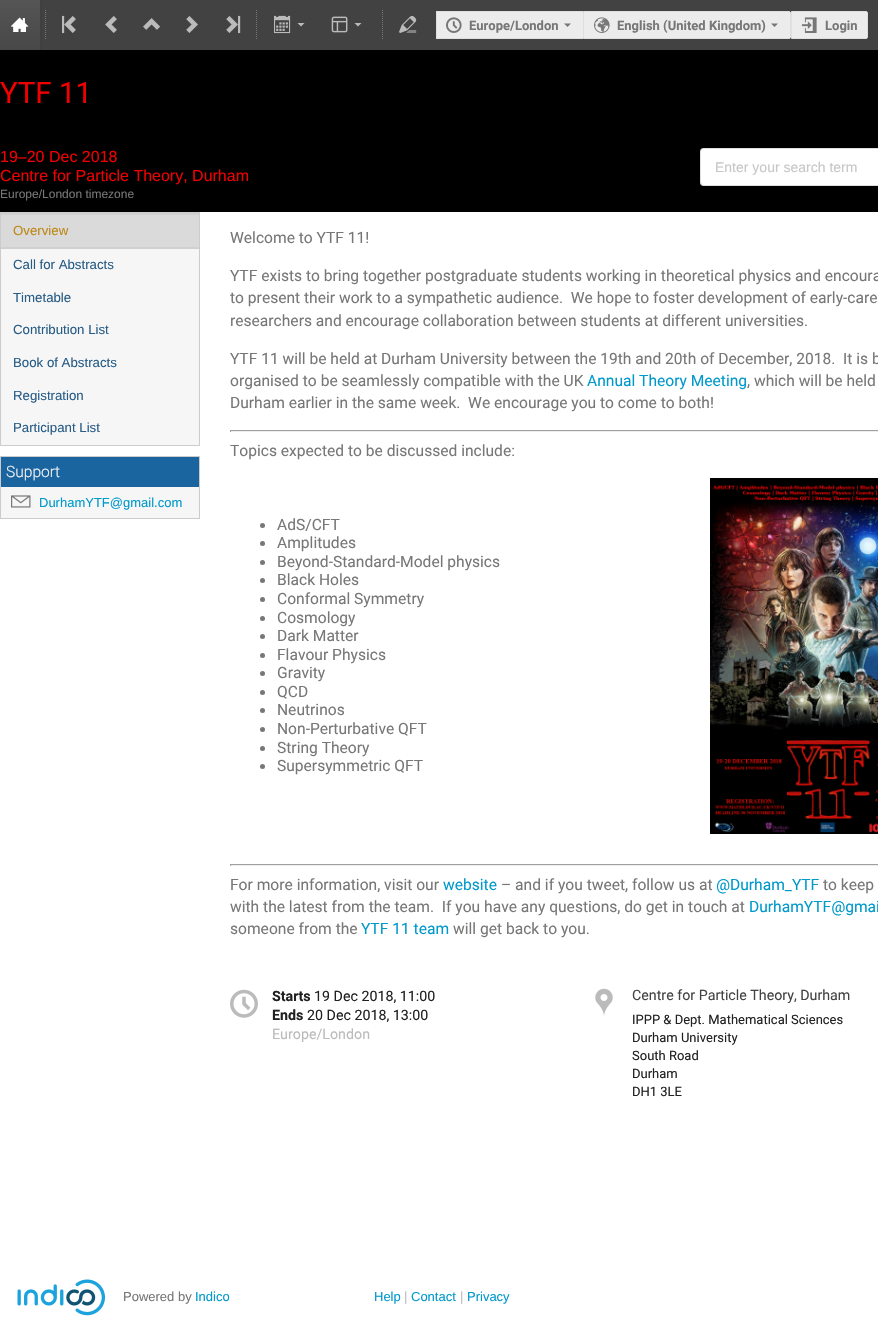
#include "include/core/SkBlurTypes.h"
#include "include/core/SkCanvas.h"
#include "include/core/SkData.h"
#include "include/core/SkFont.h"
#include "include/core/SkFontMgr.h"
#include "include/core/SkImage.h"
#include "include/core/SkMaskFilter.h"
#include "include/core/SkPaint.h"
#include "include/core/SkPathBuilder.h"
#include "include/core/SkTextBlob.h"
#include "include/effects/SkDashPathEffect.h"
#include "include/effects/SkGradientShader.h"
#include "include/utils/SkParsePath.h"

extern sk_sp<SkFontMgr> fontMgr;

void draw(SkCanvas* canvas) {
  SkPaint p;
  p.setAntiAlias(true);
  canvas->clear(SK_ColorWHITE);
  p.setColor(SkColorSetRGB(66, 66, 66));
  canvas->drawRect(SkRect::MakeLTRB(40, 0, 878, 50), p);
  p.setColor(SK_ColorBLACK);
  canvas->drawRect(SkRect::MakeLTRB(0, 50, 878, 212), p);
  p.setColor(SkColorSetARGB(26, 20, 20, 20));
  p.setMaskFilter(SkMaskFilter::MakeBlur(kNormal_SkBlurStyle, 2));
  canvas->drawRect(SkRect::MakeLTRB(1, 1, 41, 51), p);
  p.setMaskFilter(nullptr);
  {
    const SkColor colors[] = {SkColorSetRGB(85, 85, 85), SkColorSetRGB(72, 72, 72)};
    const float stops[] = {0, 1};
    const SkPoint ends[] = {{20, 0}, {20, 50}};
    p.setShader(SkGradientShader::MakeLinear(ends, colors, stops, 2, SkTileMode::kClamp));
    p.setAlpha(255);
  }
  canvas->drawRect(SkRect::MakeLTRB(0, 0, 40, 50), p);
  canvas->drawImageRect(SkImages::DeferredFromEncodedData(SkData::MakeFromFileName("images/1.png")), SkRect::MakeLTRB(11, 17, 29, 32), SkSamplingOptions());
  p.setStyle(SkPaint::kStroke_Style);
  p.setStrokeWidth(1);
  p.setShader(nullptr);
  p.setColor(SkColorSetRGB(119, 119, 119));
  p.setPathEffect(SkDashPathEffect::Make({{1, 1}}, 0));
  canvas->drawPath(SkPathBuilder().moveTo(45.5f, 10).lineTo(45.5f, 40).detach(), p);
  p.setPathEffect(nullptr);
  canvas->drawImageRect(SkImages::DeferredFromEncodedData(SkData::MakeFromFileName("images/2.png")), SkRect::MakeLTRB(62, 15, 76, 34), SkSamplingOptions());
  canvas->drawImageRect(SkImages::DeferredFromEncodedData(SkData::MakeFromFileName("images/3.png")), SkRect::MakeLTRB(105, 16, 117, 33), SkSamplingOptions());
  canvas->drawImageRect(SkImages::DeferredFromEncodedData(SkData::MakeFromFileName("images/4.png")), SkRect::MakeLTRB(143, 18, 160, 30), SkSamplingOptions());
  canvas->drawImageRect(SkImages::DeferredFromEncodedData(SkData::MakeFromFileName("images/5.png")), SkRect::MakeLTRB(186, 16, 198, 33), SkSamplingOptions());
  canvas->drawImageRect(SkImages::DeferredFromEncodedData(SkData::MakeFromFileName("images/6.png")), SkRect::MakeLTRB(226, 15, 241, 34), SkSamplingOptions());
  p.setPathEffect(SkDashPathEffect::Make({{1, 1}}, 0));
  canvas->drawPath(SkPathBuilder().moveTo(256.5f, 10).lineTo(256.5f, 40).detach(), p);
  p.setPathEffect(nullptr);
  canvas->drawImageRect(SkImages::DeferredFromEncodedData(SkData::MakeFromFileName("images/7.png")), SkRect::MakeLTRB(274, 15, 291, 34), SkSamplingOptions());
  p.setStyle(SkPaint::kFill_Style);
  p.setColor(SkColorSetRGB(187, 187, 187));
  canvas->drawPath(SkPathBuilder().moveTo(297.5f, 23).lineTo(301, 26.5f).lineTo(304.5f, 23).close().detach(), p);
  canvas->drawImageRect(SkImages::DeferredFromEncodedData(SkData::MakeFromFileName("images/8.png")), SkRect::MakeLTRB(331, 16, 348, 33), SkSamplingOptions());
  canvas->drawPath(SkPathBuilder().moveTo(354.5f, 23).lineTo(358, 26.5f).lineTo(361.5f, 23).close().detach(), p);
  p.setStyle(SkPaint::kStroke_Style);
  p.setColor(SkColorSetRGB(119, 119, 119));
  p.setPathEffect(SkDashPathEffect::Make({{1, 1}}, 0));
  canvas->drawPath(SkPathBuilder().moveTo(382.5f, 10).lineTo(382.5f, 40).detach(), p);
  p.setPathEffect(nullptr);
  canvas->drawImageRect(SkImages::DeferredFromEncodedData(SkData::MakeFromFileName("images/9.png")), SkRect::MakeLTRB(399, 16, 417, 33), SkSamplingOptions());
  p.setStyle(SkPaint::kFill_Style);
  p.setColor(SkColorSetRGB(236, 236, 236));
  canvas->drawRect(SkRect::MakeLTRB(437, 12, 583, 38), p);
  p.setColor(SkColorSetRGB(223, 223, 223));
  canvas->drawRect(SkRect::MakeLTRB(436, 11, 583, 12), p);
  canvas->drawRect(SkRect::MakeLTRB(436, 38, 583, 39), p);
  canvas->drawRect(SkRect::MakeLTRB(436, 11, 437, 39), p);
  canvas->drawImageRect(SkImages::DeferredFromEncodedData(SkData::MakeFromFileName("images/10.png")), SkRect::MakeLTRB(446, 17, 462, 33), SkSamplingOptions());
  p.setColor(SkColorSetRGB(119, 119, 119));
  canvas->drawPath(SkPathBuilder().moveTo(564, 23.5f).lineTo(567.5f, 27).lineTo(571, 23.5f).close().detach(), p);
  p.setColor(SkColorSetRGB(236, 236, 236));
  canvas->drawPath(SkPathBuilder().moveTo(583.5f, 11.5f).lineTo(789, 11.5f).cubicTo(790, 11.5f, 790.5f, 12, 790.5f, 13).lineTo(790.5f, 37).cubicTo(790.5f, 38, 790, 38.5f, 789, 38.5f).lineTo(583.5f, 38.5f).close().detach(), p);
  p.setStyle(SkPaint::kStroke_Style);
  p.setColor(SkColorSetRGB(223, 223, 223));
  canvas->drawPath(SkPathBuilder().moveTo(583.5f, 11.5f).lineTo(789, 11.5f).cubicTo(790, 11.5f, 790.5f, 12, 790.5f, 13).lineTo(790.5f, 37).cubicTo(790.5f, 38, 790, 38.5f, 789, 38.5f).lineTo(583.5f, 38.5f).close().detach(), p);
  canvas->drawImageRect(SkImages::DeferredFromEncodedData(SkData::MakeFromFileName("images/11.png")), SkRect::MakeLTRB(594, 17, 610, 33), SkSamplingOptions());
  p.setStyle(SkPaint::kFill_Style);
  p.setColor(SkColorSetRGB(119, 119, 119));
  canvas->drawPath(SkPathBuilder().moveTo(771, 23.5f).lineTo(774.5f, 27).lineTo(778, 23.5f).close().detach(), p);
  p.setColor(SkColorSetRGB(236, 236, 236));
  canvas->drawPath(SkPathBuilder().moveTo(791.5f, 11.5f).lineTo(866, 11.5f).cubicTo(867, 11.5f, 867.5f, 12, 867.5f, 13).lineTo(867.5f, 37).cubicTo(867.5f, 38, 867, 38.5f, 866, 38.5f).lineTo(791.5f, 38.5f).close().detach(), p);
  p.setStyle(SkPaint::kStroke_Style);
  p.setColor(SkColorSetRGB(223, 223, 223));
  canvas->drawPath(SkPathBuilder().moveTo(791.5f, 11.5f).lineTo(866, 11.5f).cubicTo(867, 11.5f, 867.5f, 12, 867.5f, 13).lineTo(867.5f, 37).cubicTo(867.5f, 38, 867, 38.5f, 866, 38.5f).lineTo(791.5f, 38.5f).close().detach(), p);
  canvas->drawImageRect(SkImages::DeferredFromEncodedData(SkData::MakeFromFileName("images/12.png")), SkRect::MakeLTRB(802, 17, 817, 33), SkSamplingOptions());
  p.setStyle(SkPaint::kFill_Style);
  p.setColor(SK_ColorWHITE);
  canvas->drawRoundRect(SkRect::MakeLTRB(700, 148, 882, 186), 4, 4, p);
  p.setStyle(SkPaint::kStroke_Style);
  p.setColor(SkColorSetARGB(38, 34, 36, 38));
  canvas->drawRoundRect(SkRect::MakeLTRB(700.5f, 148.5f, 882.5f, 185.5f), 3.5f, 3.5f, p);
  p.setStyle(SkPaint::kFill_Style);
  p.setColor(SkColorSetRGB(246, 246, 246));
  canvas->drawRect(SkRect::MakeLTRB(1, 249, 199, 445), p);
  p.setStyle(SkPaint::kStroke_Style);
  p.setColor(SkColorSetRGB(204, 204, 204));
  canvas->drawRect(SkRect::MakeLTRB(0.5f, 212.5f, 199.5f, 445.5f), p);
  p.setStyle(SkPaint::kFill_Style);
  p.setColor(SkColorSetRGB(218, 218, 218));
  canvas->drawRect(SkRect::MakeLTRB(1, 215, 199, 247), p);
  p.setColor(SkColorSetRGB(208, 208, 208));
  canvas->drawRect(SkRect::MakeLTRB(1, 213, 199, 215), p);
  canvas->drawRect(SkRect::MakeLTRB(1, 247, 199, 249), p);
  p.setColor(SkColorSetRGB(246, 246, 246));
  canvas->drawRect(SkRect::MakeLTRB(1, 487, 199, 518), p);
  p.setStyle(SkPaint::kStroke_Style);
  p.setColor(SkColorSetRGB(204, 204, 204));
  canvas->drawRect(SkRect::MakeLTRB(0.5f, 456.5f, 199.5f, 518.5f), p);
  p.setStyle(SkPaint::kFill_Style);
  p.setColor(SkColorSetRGB(26, 100, 160));
  canvas->drawRect(SkRect::MakeLTRB(1, 457, 199, 487), p);
  canvas->drawImageRect(SkImages::DeferredFromEncodedData(SkData::MakeFromFileName("images/13.png")), SkRect::MakeLTRB(11, 495, 31, 508), SkSamplingOptions());
  p.setColor(SkColorSetRGB(159, 159, 159));
  canvas->drawRect(SkRect::MakeLTRB(230, 430, 878, 431), p);
  p.setColor(SkColorSetRGB(238, 238, 238));
  canvas->drawRect(SkRect::MakeLTRB(230, 431, 878, 432), p);
  p.setColor(SkColorSetRGB(159, 159, 159));
  canvas->drawRect(SkRect::MakeLTRB(230, 430, 231, 432), p);
  p.setColor(SkColorSetRGB(119, 119, 119));
  canvas->drawCircle(262.5f, 525.5f, 2.5f, p);
  canvas->drawCircle(262.5f, 543.5f, 2.5f, p);
  canvas->drawCircle(262.5f, 562.5f, 2.5f, p);
  canvas->drawCircle(262.5f, 580.5f, 2.5f, p);
  canvas->drawCircle(262.5f, 599.5f, 2.5f, p);
  canvas->drawCircle(262.5f, 618.5f, 2.5f, p);
  canvas->drawCircle(262.5f, 636.5f, 2.5f, p);
  canvas->drawCircle(262.5f, 655.5f, 2.5f, p);
  canvas->drawCircle(262.5f, 673.5f, 2.5f, p);
  canvas->drawCircle(262.5f, 692.5f, 2.5f, p);
  canvas->drawCircle(262.5f, 710.5f, 2.5f, p);
  canvas->drawCircle(262.5f, 729.5f, 2.5f, p);
  canvas->drawCircle(262.5f, 748.5f, 2.5f, p);
  canvas->drawCircle(262.5f, 766.5f, 2.5f, p);
  canvas->drawImageRect(SkImages::DeferredFromEncodedData(SkData::MakeFromFileName("images/14.png")), SkRect::MakeLTRB(710, 478, 878, 834), SkSamplingOptions());
  p.setColor(SkColorSetRGB(159, 159, 159));
  canvas->drawRect(SkRect::MakeLTRB(230, 864, 878, 865), p);
  p.setColor(SkColorSetRGB(238, 238, 238));
  canvas->drawRect(SkRect::MakeLTRB(230, 865, 878, 866), p);
  p.setColor(SkColorSetRGB(159, 159, 159));
  canvas->drawRect(SkRect::MakeLTRB(230, 864, 231, 866), p);
  canvas->drawImageRect(SkImages::DeferredFromEncodedData(SkData::MakeFromFileName("images/15.png")), SkRect::MakeLTRB(230, 989, 258, 1018), SkSamplingOptions());
  canvas->drawImageRect(SkImages::DeferredFromEncodedData(SkData::MakeFromFileName("images/16.png")), SkRect::MakeLTRB(595, 988, 613, 1016), SkSamplingOptions());
  canvas->drawImageRect(SkImages::DeferredFromEncodedData(SkData::MakeFromFileName("images/17.png")), SkRect::MakeLTRB(17, 1279, 105, 1316), SkSamplingOptions());
  SkFont font1(fontMgr->matchFamilyStyle("Roboto", SkFontStyle::Bold()), 13);
  font1.setSubpixel(true);
  p.setColor(SkColorSetRGB(119, 119, 119));
  canvas->drawString("Europe/London", 469, 30, font1, p);
  canvas->drawString("English (United Kingdom)", 617, 30, font1, p);
  canvas->drawString("Login", 825, 30, font1, p);
  SkFont font2(fontMgr->matchFamilyStyle("Roboto", SkFontStyle::Normal()), 29.5f);
  font2.setSubpixel(true);
  p.setColor(SkColorSetRGB(240, 0, 0));
  canvas->drawString("YTF 11", 0, 103, font2, p);
  SkFont font3(fontMgr->matchFamilyStyle("Liberation Sans", SkFontStyle::Normal()), 16);
  font3.setSubpixel(true);
  canvas->drawString("19–20 Dec 2018", 0, 162, font3, p);
  canvas->drawString("Centre for Particle Theory, Durham", 0, 181, font3, p);
  SkFont font4(fontMgr->matchFamilyStyle("Liberation Sans", SkFontStyle::Normal()), 12);
  font4.setSubpixel(true);
  p.setColor(SkColorSetRGB(119, 119, 119));
  canvas->drawString("Europe/London timezone", 0, 198, font4, p);
  SkFont font5(fontMgr->matchFamilyStyle("Liberation Sans", SkFontStyle::Normal()), 14);
  font5.setSubpixel(true);
  p.setColor(SkColorSetRGB(199, 199, 199));
  canvas->drawString("Enter your search term", 715, 172, font5, p);
  SkFont font6(fontMgr->matchFamilyStyle("Liberation Sans", SkFontStyle::Normal()), 13.25f);
  font6.setSubpixel(true);
  p.setColor(SkColorSetRGB(189, 137, 26));
  canvas->drawString("Overview", 13, 235, font6, p);
  p.setColor(SkColorSetRGB(39, 92, 134));
  canvas->drawString("Call for Abstracts", 13, 269, font6, p);
  canvas->drawString("Timetable", 13, 302, font6, p);
  canvas->drawString("Contribution List", 13, 334, font6, p);
  canvas->drawString("Book of Abstracts", 13, 367, font6, p);
  canvas->drawString("Registration", 13, 400, font6, p);
  canvas->drawString("Participant List", 13, 432, font6, p);
  SkFont font7(fontMgr->matchFamilyStyle("Roboto", SkFontStyle(300, SkFontStyle::kNormal_Width, SkFontStyle::kUpright_Slant)), 15.6f);
  font7.setSubpixel(true);
  p.setColor(SkColorSetRGB(243, 243, 243));
  canvas->drawString("Support", 6, 477, font7, p);
  SkFont font8(fontMgr->matchFamilyStyle("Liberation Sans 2", SkFontStyle::Normal()), 13);
  font8.setSubpixel(true);
  p.setColor(SkColorSetRGB(0, 153, 204));
  canvas->drawString("DurhamYTF@gmail.com", 39, 507, font8, p);
  SkFont font9(fontMgr->matchFamilyStyle("Roboto", SkFontStyle::Normal()), 15.6f);
  font9.setSubpixel(true);
  p.setColor(SkColorSetRGB(119, 119, 119));
  canvas->drawString("Welcome to YTF 11!", 230, 243, font9, p);
  canvas->drawString("YTF exists to bring together postgraduate students working in theoretical physics and encoura", 230, 281, font9, p);
  canvas->drawString("to present their work to a sympathetic audience.  We hope to foster development of early-care", 230, 303, font9, p);
  canvas->drawString("researchers and encourage collaboration between students at different universities.", 230, 326, font9, p);
  canvas->drawString("YTF 11 will be held at Durham University between the 19th and 20th of December, 2018.  It is b", 230, 364, font9, p);
  canvas->drawString("organised to be seamlessly compatible with the UK", 230, 386, font9, p);
  p.setColor(SkColorSetRGB(0, 153, 204));
  canvas->drawString("Annual Theory Meeting", 587, 386, font9, p);
  p.setColor(SkColorSetRGB(119, 119, 119));
  canvas->drawString(", which will be held", 747, 386, font9, p);
  canvas->drawString("Durham earlier in the same week.  We encourage you to come to both!", 230, 408, font9, p);
  canvas->drawString("Topics expected to be discussed include:", 230, 456, font9, p);
  canvas->drawString("AdS/CFT", 277, 530, font9, p);
  canvas->drawString("Amplitudes", 277, 548, font9, p);
  canvas->drawString("Beyond-Standard-Model physics", 277, 567, font9, p);
  canvas->drawString("Black Holes", 277, 585, font9, p);
  canvas->drawString("Conformal Symmetry", 277, 604, font9, p);
  canvas->drawString("Cosmology", 277, 623, font9, p);
  canvas->drawString("Dark Matter", 277, 641, font9, p);
  canvas->drawString("Flavour Physics", 277, 660, font9, p);
  canvas->drawString("Gravity", 277, 678, font9, p);
  canvas->drawString("QCD", 277, 697, font9, p);
  canvas->drawString("Neutrinos", 277, 715, font9, p);
  canvas->drawString("Non-Perturbative QFT", 277, 734, font9, p);
  canvas->drawString("String Theory", 277, 753, font9, p);
  canvas->drawString("Supersymmetric QFT", 277, 771, font9, p);
  canvas->drawString("For more information, visit our", 230, 890, font9, p);
  p.setColor(SkColorSetRGB(0, 153, 204));
  canvas->drawString("website", 443, 890, font9, p);
  p.setColor(SkColorSetRGB(119, 119, 119));
  canvas->drawString("– and if you tweet, follow us at", 501, 890, font9, p);
  p.setColor(SkColorSetRGB(0, 153, 204));
  canvas->drawString("@Durham_YTF", 716, 890, font9, p);
  p.setColor(SkColorSetRGB(119, 119, 119));
  canvas->drawString("to keep", 823, 890, font9, p);
  canvas->drawString("with the latest from the team.  If you have any questions, do get in touch at", 230, 912, font9, p);
  p.setColor(SkColorSetRGB(0, 153, 204));
  canvas->drawString("DurhamYTF@gmai", 749, 912, font9, p);
  p.setColor(SkColorSetRGB(119, 119, 119));
  canvas->drawString("someone from the", 230, 934, font9, p);
  p.setColor(SkColorSetRGB(0, 153, 204));
  canvas->drawString("YTF 11 team", 361, 934, font9, p);
  p.setColor(SkColorSetRGB(119, 119, 119));
  canvas->drawString("will get back to you.", 453, 934, font9, p);
  SkFont font10(fontMgr->matchFamilyStyle("Roboto", SkFontStyle::Bold()), 14.25f);
  font10.setSubpixel(true);
  p.setColor(SkColorSetRGB(33, 33, 33));
  canvas->drawString("Starts", 272, 1001, font10, p);
  SkFont font11(fontMgr->matchFamilyStyle("Roboto", SkFontStyle::Normal()), 14.25f);
  font11.setSubpixel(true);
  canvas->drawString("19 Dec 2018, 11:00", 314, 1001, font11, p);
  canvas->drawString("Ends", 272, 1020, font10, p);
  canvas->drawString("20 Dec 2018, 13:00", 307, 1020, font11, p);
  p.setColor(SkColorSetRGB(187, 187, 187));
  canvas->drawString("Europe/London", 272, 1039, font11, p);
  p.setColor(SkColorSetRGB(68, 68, 68));
  canvas->drawString("Centre for Particle Theory, Durham", 632, 1000, font11, p);
  SkFont font12(fontMgr->matchFamilyStyle("Roboto", SkFontStyle::Normal()), 13);
  font12.setSubpixel(true);
  p.setColor(SkColorSetRGB(33, 33, 33));
  canvas->drawString("IPPP & Dept. Mathematical Sciences", 632, 1024, font12, p);
  canvas->drawString("Durham University", 632, 1042, font12, p);
  canvas->drawString("South Road", 632, 1060, font12, p);
  canvas->drawString("Durham", 632, 1078, font12, p);
  canvas->drawString("DH1 3LE", 632, 1096, font12, p);
  p.setColor(SkColorSetRGB(119, 119, 119));
  canvas->drawString("Powered by", 123, 1301, font8, p);
  p.setColor(SkColorSetRGB(0, 153, 204));
  canvas->drawString("Indico", 195, 1301, font8, p);
  canvas->drawString("Help", 374, 1301, font8, p);
  p.setColor(SkColorSetRGB(187, 187, 187));
  canvas->drawString("|", 404, 1301, font8, p);
  p.setColor(SkColorSetRGB(0, 153, 204));
  canvas->drawString("Contact", 411, 1301, font8, p);
  p.setColor(SkColorSetRGB(187, 187, 187));
  canvas->drawString("|", 460, 1301, font8, p);
  p.setColor(SkColorSetRGB(0, 153, 204));
  canvas->drawString("Privacy", 467, 1301, font8, p);
}
